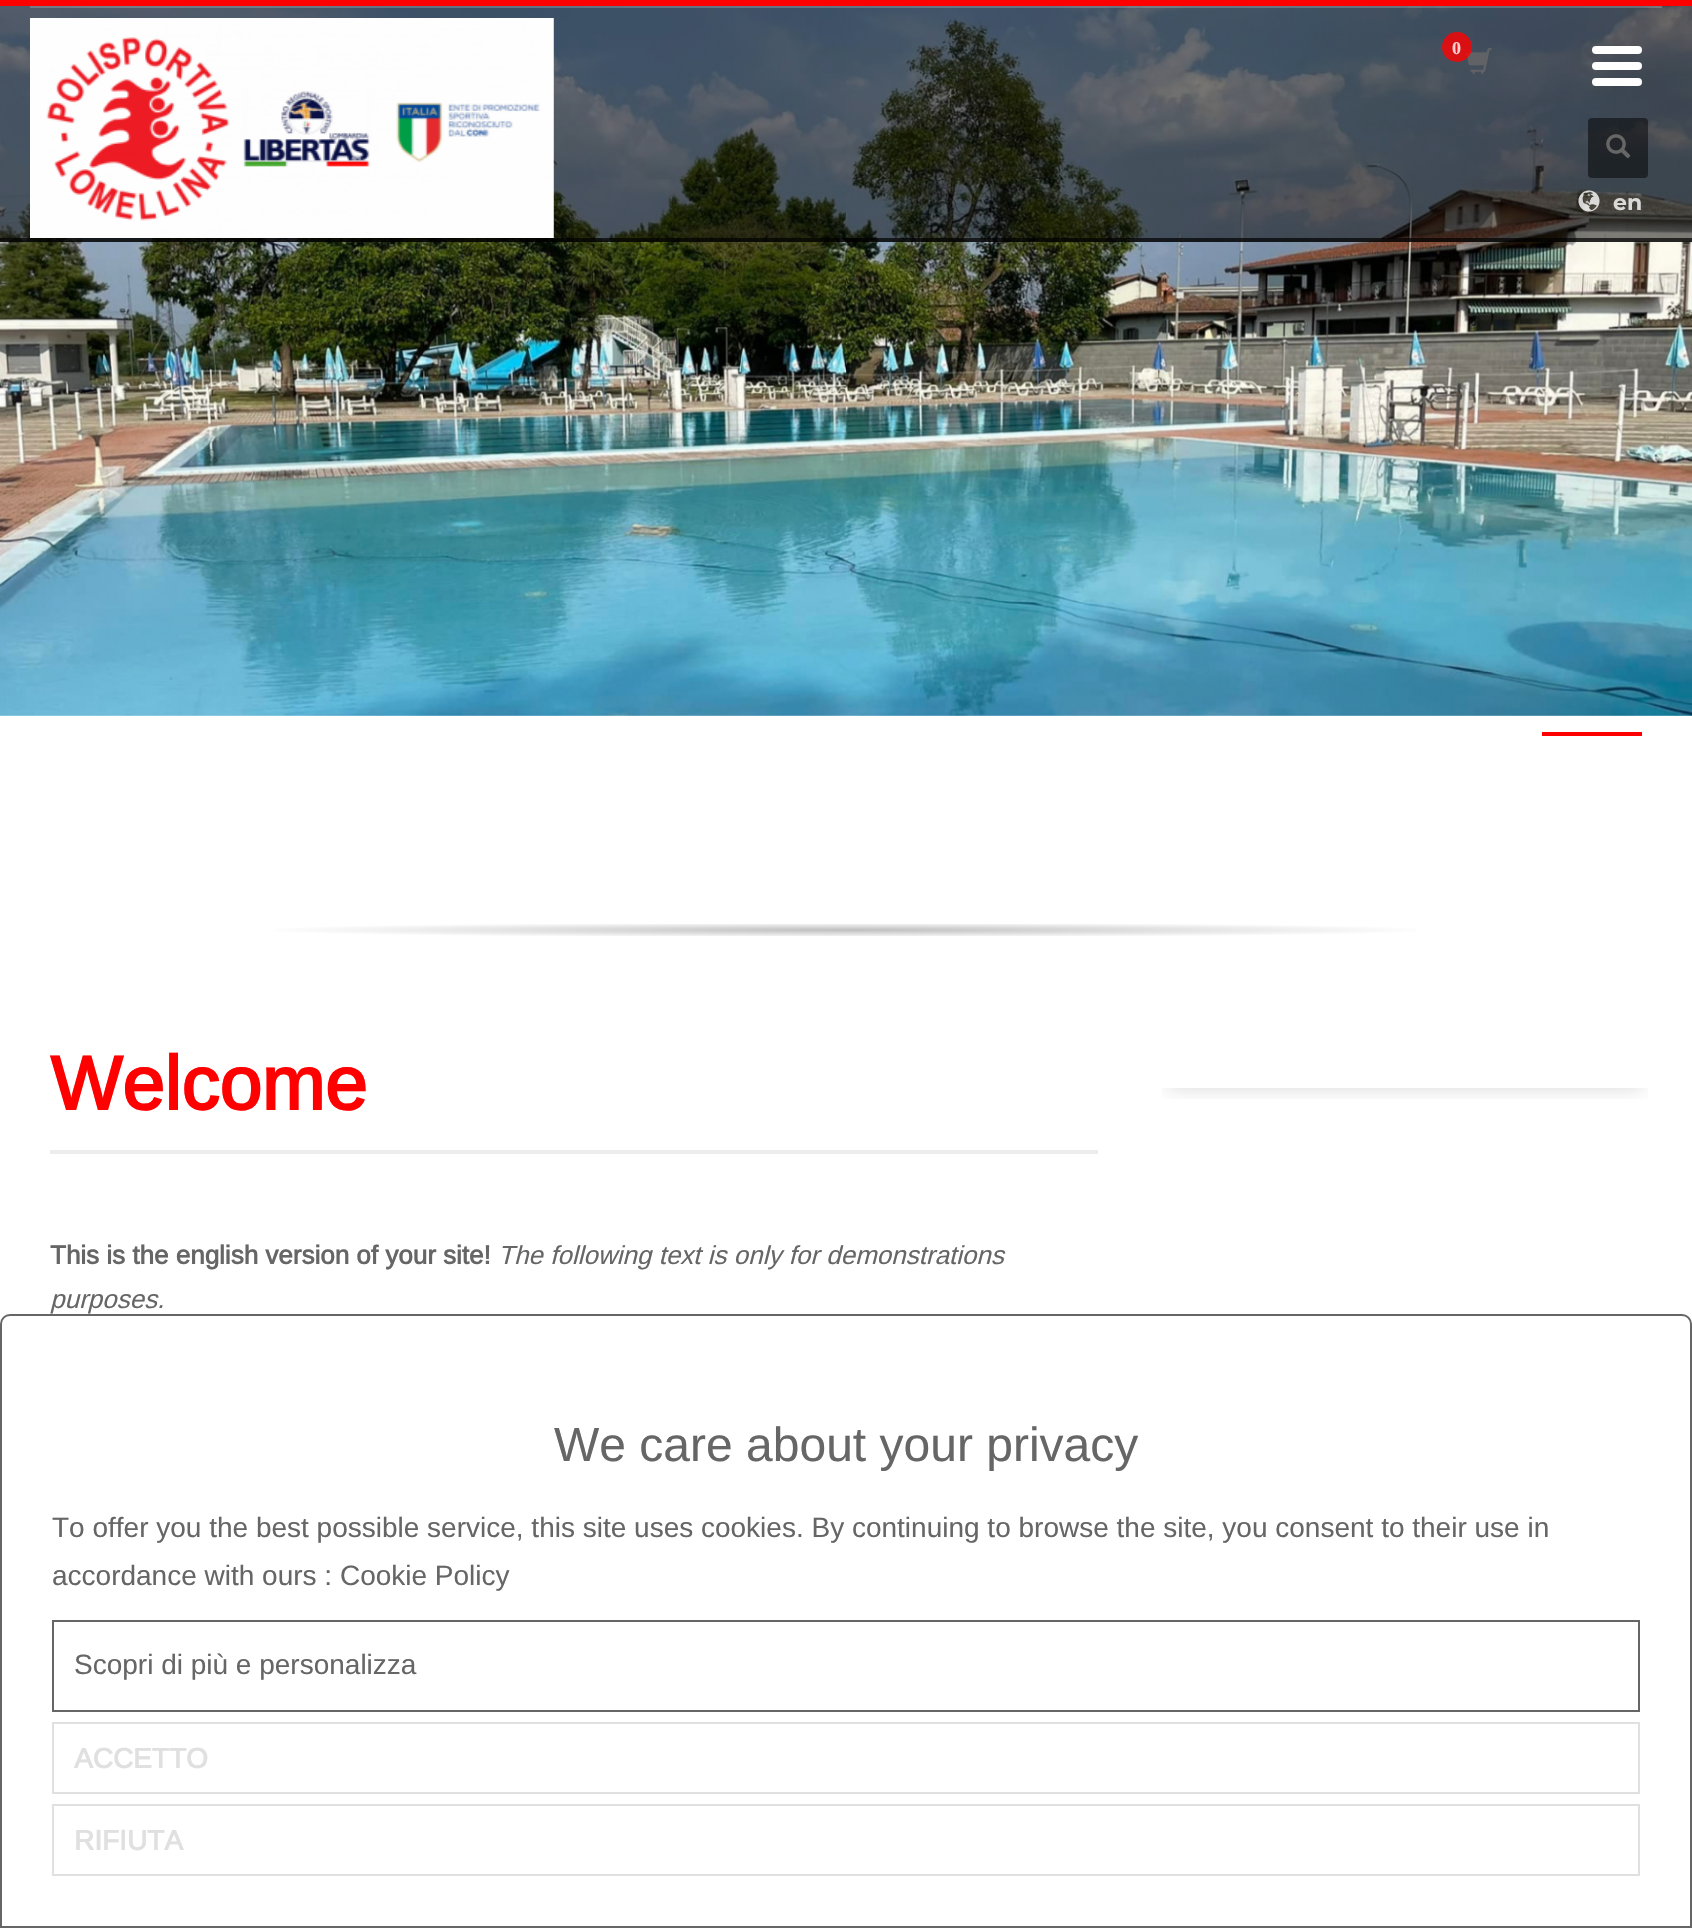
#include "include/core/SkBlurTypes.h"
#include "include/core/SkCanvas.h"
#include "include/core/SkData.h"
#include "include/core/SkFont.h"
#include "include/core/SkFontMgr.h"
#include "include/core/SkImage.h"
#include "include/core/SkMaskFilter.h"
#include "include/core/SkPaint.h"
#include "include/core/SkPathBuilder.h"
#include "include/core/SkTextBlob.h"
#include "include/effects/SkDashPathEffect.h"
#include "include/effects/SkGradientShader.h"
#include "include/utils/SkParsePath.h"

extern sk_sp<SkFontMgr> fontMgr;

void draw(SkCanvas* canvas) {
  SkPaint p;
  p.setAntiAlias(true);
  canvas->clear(SK_ColorWHITE);
  canvas->drawImageRect(SkImages::DeferredFromEncodedData(SkData::MakeFromFileName("images/1.png")), SkRect::MakeLTRB(0, 6, 1692, 716), SkSamplingOptions());
  p.setColor(SkColorSetRGB(255, 0, 0));
  canvas->drawRect(SkRect::MakeLTRB(1542, 732, 1642, 736), p);
  {
    const SkColor colors[] = {SkColorSetRGB(191, 191, 191), SK_ColorWHITE};
    const float stops[] = {0, 0.7f};
    SkMatrix m = SkMatrix::Translate(846, 930).preScale(846, 11);
    p.setShader(SkGradientShader::MakeRadial({0, 0}, 1, colors, stops, 2, SkTileMode::kClamp, 0, &m));
    p.setAlpha(255);
  }
  canvas->drawRect(SkRect::MakeLTRB(275, 924, 1417, 936), p);
  p.setShader(nullptr);
  p.setColor(SkColorSetARGB(128, 0, 0, 0));
  canvas->drawRect(SkRect::MakeLTRB(0, 6, 1692, 242), p);
  p.setColor(SkColorSetRGB(255, 0, 0));
  canvas->drawRect(SkRect::MakeLTRB(0, 0, 1692, 6), p);
  p.setColor(SkColorSetARGB(179, 0, 0, 0));
  canvas->drawRect(SkRect::MakeLTRB(0, 238, 1692, 242), p);
  p.setColor(SkColorSetARGB(51, 255, 255, 255));
  canvas->drawRect(SkRect::MakeLTRB(30, 6, 1662, 8), p);
  canvas->drawImageRect(SkImages::DeferredFromEncodedData(SkData::MakeFromFileName("images/2.png")), SkRect::MakeLTRB(30, 18, 554, 238), SkSamplingOptions());
  canvas->drawImageRect(SkImages::DeferredFromEncodedData(SkData::MakeFromFileName("images/3.png")), SkRect::MakeLTRB(1466, 48, 1492, 74), SkSamplingOptions());
  p.setColor(SkColorSetARGB(204, 255, 0, 0));
  canvas->drawCircle(1457, 47, 15, p);
  canvas->drawImageRect(SkImages::DeferredFromEncodedData(SkData::MakeFromFileName("images/4.png")), SkRect::MakeLTRB(1578, 190, 1600, 212), SkSamplingOptions());
  p.setColor(SK_ColorWHITE);
  canvas->drawRoundRect(SkRect::MakeLTRB(1592, 78, 1642, 86), 4, 4, p);
  canvas->drawRoundRect(SkRect::MakeLTRB(1592, 62, 1642, 70), 4, 4, p);
  canvas->drawRoundRect(SkRect::MakeLTRB(1592, 46, 1642, 54), 4, 4, p);
  p.setColor(SkColorSetARGB(128, 0, 0, 0));
  canvas->drawRoundRect(SkRect::MakeLTRB(1588, 118, 1648, 178), 4, 4, p);
  canvas->drawImageRect(SkImages::DeferredFromEncodedData(SkData::MakeFromFileName("images/5.png")), SkRect::MakeLTRB(1606, 134, 1631, 159), SkSamplingOptions());
  p.setColor(SkColorSetARGB(179, 0, 0, 0));
  canvas->drawPath(SkPathBuilder().moveTo(842, 238).lineTo(862, 238).lineTo(852, 248).close().detach(), p);
  p.setColor(SkColorSetRGB(237, 237, 237));
  canvas->drawRect(SkRect::MakeLTRB(50, 1150, 1098, 1154), p);
  canvas->save();
  canvas->clipRect(SkRect::MakeLTRB(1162, 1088, 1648, 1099));
  p.setColor(SkColorSetARGB(38, 0, 0, 0));
  p.setMaskFilter(SkMaskFilter::MakeBlur(kNormal_SkBlurStyle, 10));
  canvas->drawRect(SkRect::MakeLTRB(1168, 1048, 1642, 1088), p);
  p.setMaskFilter(nullptr);
  canvas->restore();
  p.setStyle(SkPaint::kStroke_Style);
  p.setStrokeWidth(2);
  p.setColor(SkColorSetRGB(102, 102, 102));
  canvas->drawPath(SkPathBuilder().moveTo(10, 1315).lineTo(1682, 1315).cubicTo(1687, 1315, 1691, 1319, 1691, 1324).lineTo(1691, 1927).lineTo(1, 1927).lineTo(1, 1324).cubicTo(1, 1319, 5, 1315, 10, 1315).close().detach(), p);
  canvas->drawRect(SkRect::MakeLTRB(53, 1621, 1639, 1711), p);
  p.setColor(SkColorSetRGB(224, 224, 224));
  canvas->drawRect(SkRect::MakeLTRB(53, 1723, 1639, 1793), p);
  canvas->drawRect(SkRect::MakeLTRB(53, 1805, 1639, 1875), p);
  SkFont font1(fontMgr->matchFamilyStyle("Liberation Serif", SkFontStyle::Bold()), 18);
  font1.setSubpixel(true);
  p.setStyle(SkPaint::kFill_Style);
  p.setColor(SkColorSetRGB(247, 207, 208));
  canvas->drawString("0", 1452, 54, font1, p);
  SkFont font2(fontMgr->matchFamilyStyle("Montserrat", SkFontStyle::Bold()), 22);
  font2.setSubpixel(true);
  p.setColor(SkColorSetRGB(217, 217, 216));
  canvas->drawString("en", 1613, 210, font2, p);
  SkFont font3(fontMgr->matchFamilyStyle("Arimo", SkFontStyle::Bold()), 76);
  font3.setSubpixel(true);
  p.setColor(SkColorSetRGB(255, 0, 0));
  canvas->drawString("Welcome", 50, 1110, font3, p);
  SkFont font4(fontMgr->matchFamilyStyle("Arimo", SkFontStyle::Bold()), 26);
  font4.setSubpixel(true);
  p.setColor(SkColorSetRGB(102, 102, 102));
  canvas->drawString("This is the english version of your site!", 50, 1264, font4, p);
  SkFont font5(fontMgr->matchFamilyStyle("Arimo", SkFontStyle::Italic()), 26);
  font5.setSubpixel(true);
  canvas->drawString("The following text is only for demonstrations", 498, 1264, font5, p);
  canvas->drawString("purposes.", 50, 1308, font5, p);
  SkFont font6(fontMgr->matchFamilyStyle("Arimo", SkFontStyle::Normal()), 48);
  font6.setSubpixel(true);
  canvas->drawString("We care about your privacy", 554, 1461, font6, p);
  SkFont font7(fontMgr->matchFamilyStyle("Arimo", SkFontStyle::Normal()), 28);
  font7.setSubpixel(true);
  canvas->drawString("To offer you the best possible service, this site uses cookies. By continuing to browse the site, you consent to their use in", 52, 1537, font7, p);
  canvas->drawString("accordance with ours : Cookie Policy", 52, 1585, font7, p);
  canvas->drawString("Scopri di più e personalizza", 74, 1674, font7, p);
  SkFont font8(fontMgr->matchFamilyStyle("Arimo", SkFontStyle::Bold()), 28);
  font8.setSubpixel(true);
  p.setColor(SkColorSetRGB(224, 224, 224));
  canvas->drawString("ACCETTO", 74, 1768, font8, p);
  canvas->drawString("RIFIUTA", 74, 1850, font8, p);
}
